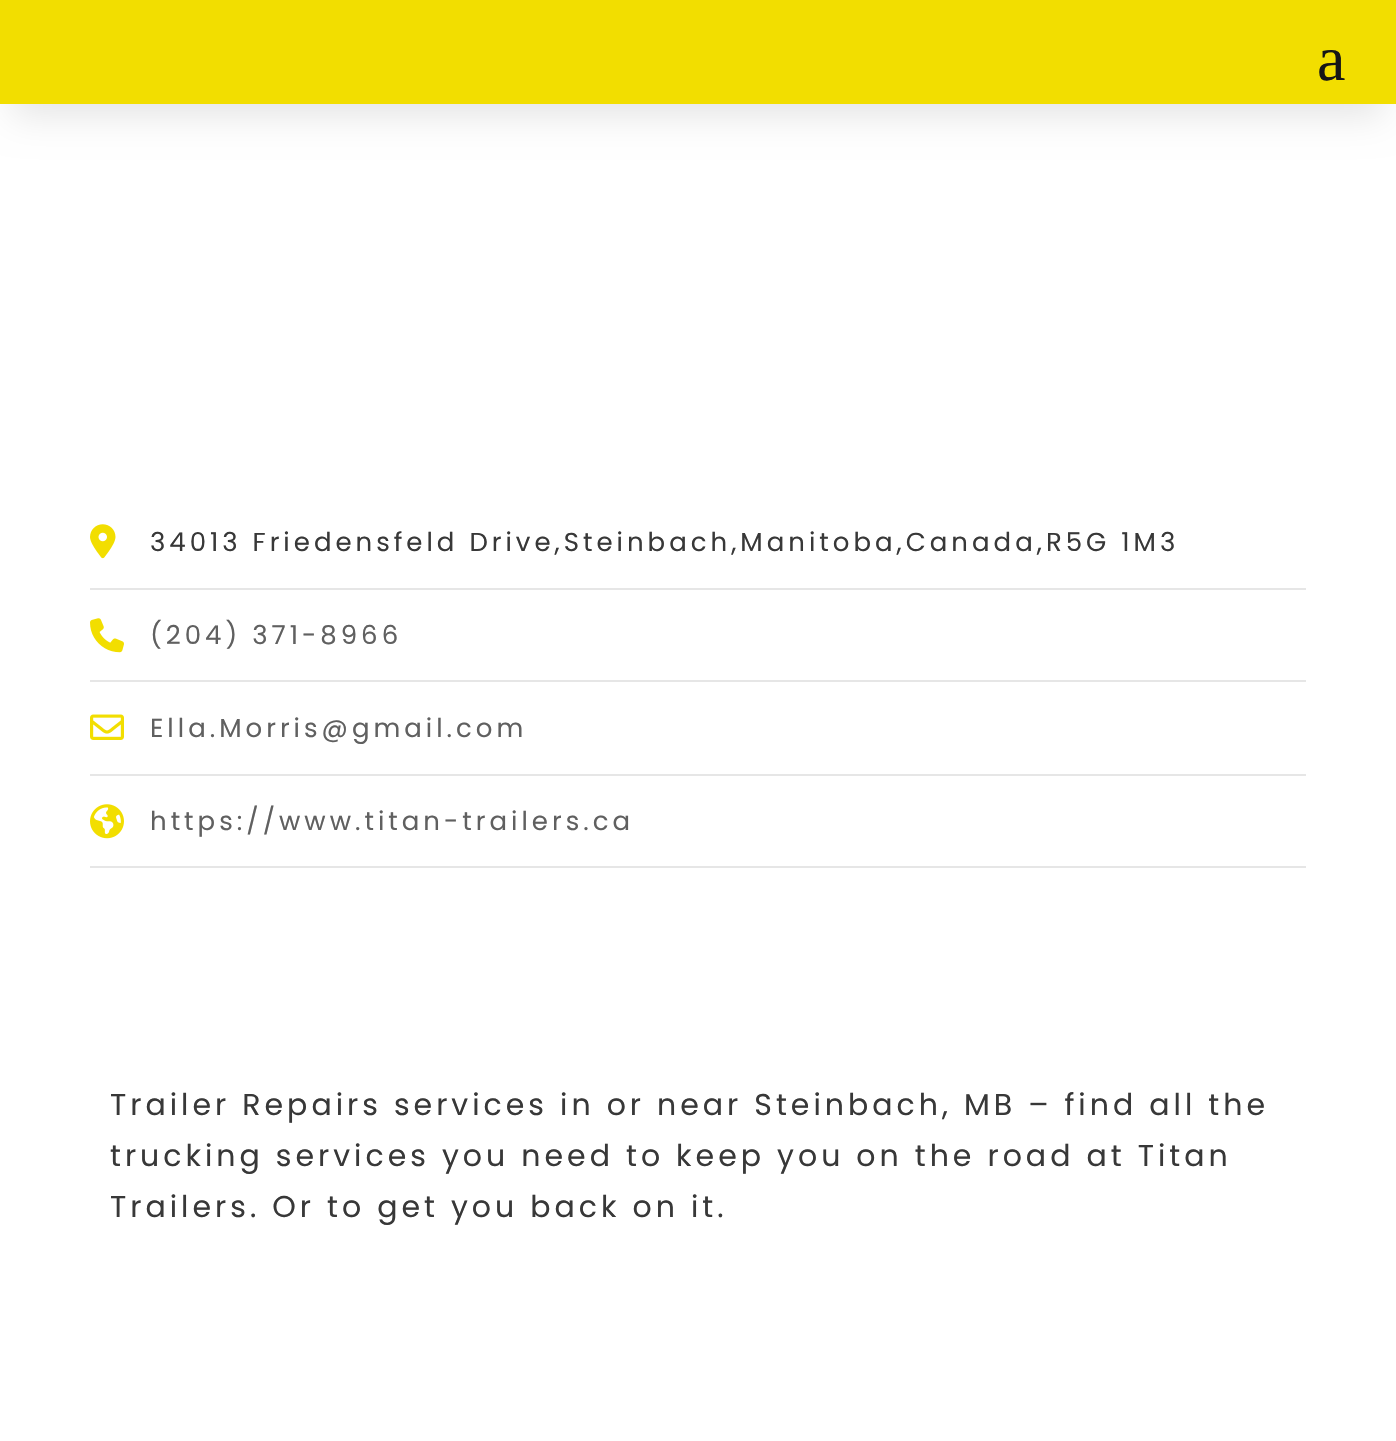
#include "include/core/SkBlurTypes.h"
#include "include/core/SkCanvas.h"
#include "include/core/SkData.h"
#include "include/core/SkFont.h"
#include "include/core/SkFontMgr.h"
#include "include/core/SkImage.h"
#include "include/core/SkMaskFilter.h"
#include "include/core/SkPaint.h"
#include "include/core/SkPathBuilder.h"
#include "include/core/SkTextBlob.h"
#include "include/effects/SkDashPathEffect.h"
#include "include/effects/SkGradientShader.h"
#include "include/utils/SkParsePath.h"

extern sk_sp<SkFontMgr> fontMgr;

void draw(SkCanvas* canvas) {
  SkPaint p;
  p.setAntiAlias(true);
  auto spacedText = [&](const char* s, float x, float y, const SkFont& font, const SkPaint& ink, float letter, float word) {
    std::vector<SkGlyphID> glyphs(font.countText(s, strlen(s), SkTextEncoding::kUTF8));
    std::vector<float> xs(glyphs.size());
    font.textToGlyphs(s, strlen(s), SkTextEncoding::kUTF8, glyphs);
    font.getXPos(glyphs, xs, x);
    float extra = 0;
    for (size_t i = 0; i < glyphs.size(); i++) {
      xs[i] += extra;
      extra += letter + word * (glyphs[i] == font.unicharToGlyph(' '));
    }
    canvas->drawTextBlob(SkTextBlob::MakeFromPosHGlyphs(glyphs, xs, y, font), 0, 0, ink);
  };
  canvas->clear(SK_ColorWHITE);
  p.setColor(SkColorSetARGB(26, 0, 0, 0));
  p.setMaskFilter(SkMaskFilter::MakeBlur(kNormal_SkBlurStyle, 18));
  canvas->drawRect(SkRect::MakeLTRB(12, 36, 1384, 116), p);
  p.setMaskFilter(nullptr);
  p.setColor(SkColorSetRGB(242, 222, 0));
  canvas->drawRect(SkRect::MakeLTRB(0, 0, 1396, 104), p);
  p.setColor(SkColorSetRGB(230, 230, 230));
  canvas->drawRect(SkRect::MakeLTRB(90, 588, 1306, 590), p);
  canvas->drawImageRect(SkImages::DeferredFromEncodedData(SkData::MakeFromFileName("images/1.png")), SkRect::MakeLTRB(90, 524, 116, 559), SkSamplingOptions());
  canvas->drawRect(SkRect::MakeLTRB(90, 680, 1306, 682), p);
  canvas->drawImageRect(SkImages::DeferredFromEncodedData(SkData::MakeFromFileName("images/2.png")), SkRect::MakeLTRB(90, 618, 124, 653), SkSamplingOptions());
  canvas->drawRect(SkRect::MakeLTRB(90, 774, 1306, 776), p);
  canvas->drawImageRect(SkImages::DeferredFromEncodedData(SkData::MakeFromFileName("images/3.png")), SkRect::MakeLTRB(90, 714, 124, 740), SkSamplingOptions());
  canvas->drawRect(SkRect::MakeLTRB(90, 866, 1306, 868), p);
  canvas->drawImageRect(SkImages::DeferredFromEncodedData(SkData::MakeFromFileName("images/4.png")), SkRect::MakeLTRB(90, 804, 124, 839), SkSamplingOptions());
  SkFont font1(fontMgr->matchFamilyStyle("Liberation Serif", SkFontStyle::Normal()), 64);
  font1.setSubpixel(true);
  p.setColor(SkColorSetRGB(22, 22, 22));
  spacedText("a", 1317, 80, font1, p, 4, 0);
  SkFont font2(fontMgr->matchFamilyStyle("Poppins", SkFontStyle::Normal()), 26);
  font2.setSubpixel(true);
  p.setColor(SkColorSetRGB(56, 56, 56));
  spacedText("34013 Friedensfeld Drive,Steinbach,Manitoba,Canada,R5G 1M3", 150, 551, font2, p, 4, 0);
  p.setColor(SkColorSetRGB(96, 96, 96));
  spacedText("(204) 371-8966", 150, 644, font2, p, 4, 0);
  spacedText("Ella.Morris@gmail.com", 150, 737, font2, p, 4, 0);
  spacedText("https://www.titan-trailers.ca", 150, 830, font2, p, 4, 0);
  SkFont font3(fontMgr->matchFamilyStyle("Poppins", SkFontStyle::Normal()), 30);
  font3.setSubpixel(true);
  p.setColor(SkColorSetRGB(56, 56, 56));
  spacedText("Trailer Repairs services in or near Steinbach, MB – find all the", 110, 1115, font3, p, 4, 0);
  spacedText("trucking services you need to keep you on the road at Titan", 110, 1166, font3, p, 4, 0);
  spacedText("Trailers. Or to get you back on it.", 110, 1217, font3, p, 4, 0);
}
